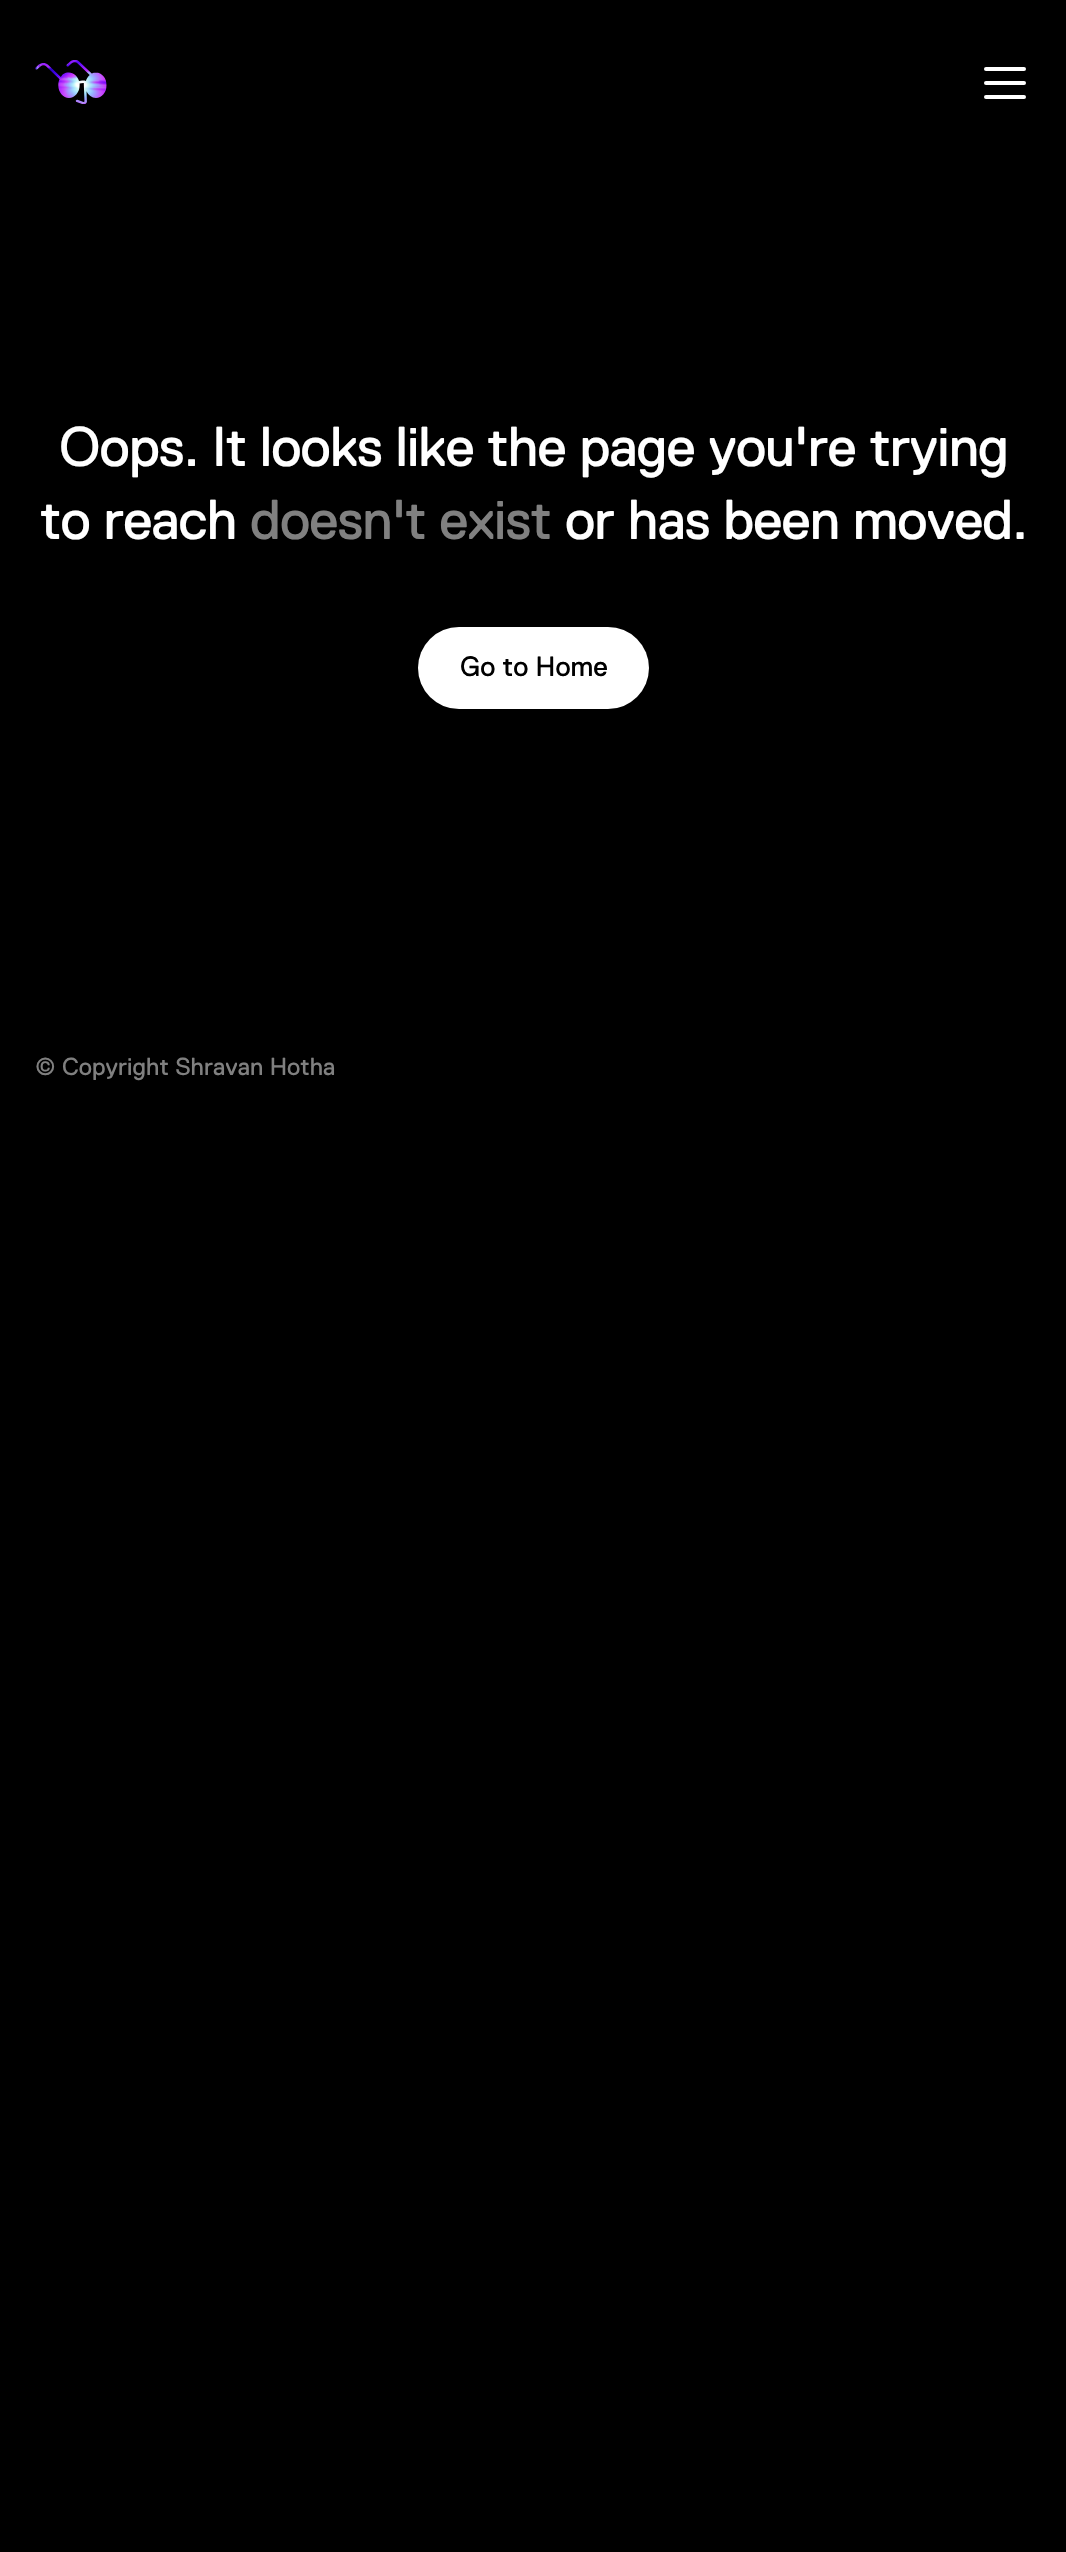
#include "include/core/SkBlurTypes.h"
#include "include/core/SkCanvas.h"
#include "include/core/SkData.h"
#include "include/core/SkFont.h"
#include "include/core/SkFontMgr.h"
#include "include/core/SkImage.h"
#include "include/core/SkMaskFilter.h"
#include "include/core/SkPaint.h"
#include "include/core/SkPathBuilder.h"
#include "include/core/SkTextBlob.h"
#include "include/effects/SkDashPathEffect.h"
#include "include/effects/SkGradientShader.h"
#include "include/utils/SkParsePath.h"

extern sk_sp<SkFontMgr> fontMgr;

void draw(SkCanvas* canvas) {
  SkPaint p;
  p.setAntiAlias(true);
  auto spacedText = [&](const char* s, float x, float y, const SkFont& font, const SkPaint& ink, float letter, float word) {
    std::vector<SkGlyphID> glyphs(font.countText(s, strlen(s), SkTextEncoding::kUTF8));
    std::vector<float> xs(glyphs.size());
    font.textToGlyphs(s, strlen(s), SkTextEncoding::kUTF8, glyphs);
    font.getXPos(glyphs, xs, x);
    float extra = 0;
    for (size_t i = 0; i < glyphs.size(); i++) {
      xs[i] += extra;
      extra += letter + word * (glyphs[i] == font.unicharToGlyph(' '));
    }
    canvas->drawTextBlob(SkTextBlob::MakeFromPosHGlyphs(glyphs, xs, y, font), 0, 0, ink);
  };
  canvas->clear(SK_ColorBLACK);
  canvas->drawImageRect(SkImages::DeferredFromEncodedData(SkData::MakeFromFileName("images/1.png")), SkRect::MakeLTRB(35, 60, 107, 104), SkSamplingOptions());
  p.setColor(SK_ColorWHITE);
  canvas->drawRoundRect(SkRect::MakeLTRB(984, 67, 1026, 71), 2, 2, p);
  canvas->drawRoundRect(SkRect::MakeLTRB(984, 81, 1026, 85), 2, 2, p);
  canvas->drawRoundRect(SkRect::MakeLTRB(984, 95, 1026, 99), 2, 2, p);
  canvas->drawRoundRect(SkRect::MakeLTRB(418, 627, 649, 709), 41, 41, p);
  SkFont font1(fontMgr->matchFamilyStyle("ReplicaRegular", SkFontStyle::Normal()), 56);
  font1.setSubpixel(true);
  spacedText("Oops. It looks like the page you're trying", 59, 466, font1, p, -0.9f, 0);
  spacedText("to reach", 40, 539, font1, p, -0.9f, 0);
  p.setColor(SkColorSetRGB(128, 128, 128));
  spacedText("doesn't exist", 250, 539, font1, p, -0.9f, 0);
  p.setColor(SK_ColorWHITE);
  spacedText("or has been moved.", 565, 539, font1, p, -0.9f, 0);
  SkFont font2(fontMgr->matchFamilyStyle("ReplicaRegular", SkFontStyle::Normal()), 28);
  font2.setSubpixel(true);
  p.setColor(SK_ColorBLACK);
  canvas->drawString("Go to Home", 460, 676, font2, p);
  SkFont font3(fontMgr->matchFamilyStyle("ReplicaRegular", SkFontStyle::Normal()), 24.5f);
  font3.setSubpixel(true);
  p.setColor(SkColorSetRGB(128, 128, 128));
  canvas->drawString("© Copyright Shravan Hotha", 35, 1075, font3, p);
}
